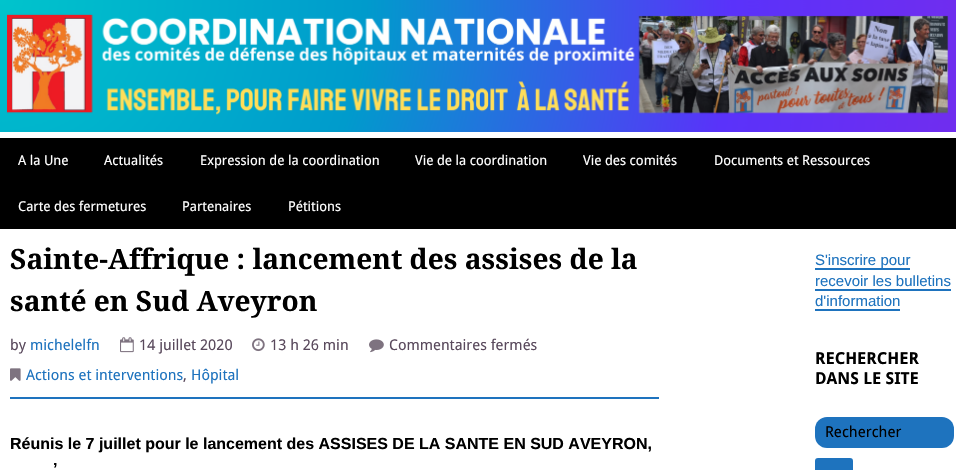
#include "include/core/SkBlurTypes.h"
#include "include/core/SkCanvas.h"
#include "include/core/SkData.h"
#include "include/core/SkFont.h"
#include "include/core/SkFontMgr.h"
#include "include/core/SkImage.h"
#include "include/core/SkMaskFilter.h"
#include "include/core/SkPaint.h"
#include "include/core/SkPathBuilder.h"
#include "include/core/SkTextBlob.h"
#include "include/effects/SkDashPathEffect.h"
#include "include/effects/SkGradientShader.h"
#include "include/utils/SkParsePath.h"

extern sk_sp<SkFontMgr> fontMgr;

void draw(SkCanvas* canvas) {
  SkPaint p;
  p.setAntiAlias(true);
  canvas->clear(SK_ColorWHITE);
  canvas->drawImageRect(SkImages::DeferredFromEncodedData(SkData::MakeFromFileName("images/1.png")), SkRect::MakeLTRB(0, 0, 956, 132), SkSamplingOptions());
  p.setColor(SK_ColorBLACK);
  canvas->drawRect(SkRect::MakeLTRB(0, 138, 956, 229), p);
  p.setColor(SkColorSetRGB(30, 115, 190));
  canvas->drawRect(SkRect::MakeLTRB(10, 397, 659, 399), p);
  canvas->drawImageRect(SkImages::DeferredFromEncodedData(SkData::MakeFromFileName("images/2.png")), SkRect::MakeLTRB(120, 337, 134, 353), SkSamplingOptions());
  canvas->drawImageRect(SkImages::DeferredFromEncodedData(SkData::MakeFromFileName("images/3.png")), SkRect::MakeLTRB(252, 338, 265, 352), SkSamplingOptions());
  canvas->drawImageRect(SkImages::DeferredFromEncodedData(SkData::MakeFromFileName("images/4.png")), SkRect::MakeLTRB(369, 339, 384, 353), SkSamplingOptions());
  canvas->drawImageRect(SkImages::DeferredFromEncodedData(SkData::MakeFromFileName("images/5.png")), SkRect::MakeLTRB(10, 368, 21, 381), SkSamplingOptions());
  canvas->drawRect(SkRect::MakeLTRB(815, 268, 910, 270), p);
  canvas->drawRect(SkRect::MakeLTRB(815, 289, 951, 291), p);
  canvas->drawRect(SkRect::MakeLTRB(815, 309, 900, 311), p);
  canvas->drawRoundRect(SkRect::MakeLTRB(815, 417, 954, 448), 12, 12, p);
  canvas->drawRoundRect(SkRect::MakeLTRB(816, 459, 852, 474), 2, 2, p);
  p.setStyle(SkPaint::kStroke_Style);
  p.setStrokeWidth(2);
  canvas->drawRoundRect(SkRect::MakeLTRB(816, 459, 852, 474), 2, 2, p);
  SkFont font1(fontMgr->matchFamilyStyle("Droid Sans", SkFontStyle::Normal()), 13.5f);
  font1.setSubpixel(true);
  p.setStyle(SkPaint::kFill_Style);
  p.setColor(SK_ColorWHITE);
  canvas->drawString("A la Une", 18, 165, font1, p);
  canvas->drawString("Actualités", 104, 165, font1, p);
  canvas->drawString("Expression de la coordination", 200, 165, font1, p);
  canvas->drawString("Vie de la coordination", 415, 165, font1, p);
  canvas->drawString("Vie des comités", 583, 165, font1, p);
  canvas->drawString("Documents et Ressources", 714, 165, font1, p);
  canvas->drawString("Carte des fermetures", 18, 211, font1, p);
  canvas->drawString("Partenaires", 182, 211, font1, p);
  canvas->drawString("Pétitions", 288, 211, font1, p);
  SkFont font2(fontMgr->matchFamilyStyle("Droid Serif", SkFontStyle::Bold()), 28.05f);
  font2.setSubpixel(true);
  p.setColor(SK_ColorBLACK);
  canvas->drawString("Sainte-Affrique : lancement des assises de la", 10, 269, font2, p);
  canvas->drawString("santé en Sud Aveyron", 10, 311, font2, p);
  SkFont font3(fontMgr->matchFamilyStyle("Droid Sans", SkFontStyle::Normal()), 14.8f);
  font3.setSubpixel(true);
  p.setColor(SkColorSetRGB(89, 73, 92));
  canvas->drawString("by", 10, 350, font3, p);
  p.setColor(SkColorSetRGB(30, 115, 190));
  canvas->drawString("michelelfn", 30, 350, font3, p);
  p.setColor(SkColorSetRGB(89, 73, 92));
  canvas->drawString("14 juillet 2020", 139, 350, font3, p);
  canvas->drawString("13 h 26 min", 270, 350, font3, p);
  canvas->drawString("Commentaires fermés", 389, 350, font3, p);
  p.setColor(SkColorSetRGB(30, 115, 190));
  canvas->drawString("Actions et interventions", 26, 380, font3, p);
  p.setColor(SkColorSetRGB(89, 73, 92));
  canvas->drawString(",", 183, 380, font3, p);
  p.setColor(SkColorSetRGB(30, 115, 190));
  canvas->drawString("Hôpital", 191, 380, font3, p);
  SkFont font4(fontMgr->matchFamilyStyle("Liberation Sans", SkFontStyle::Bold()), 16);
  font4.setSubpixel(true);
  p.setColor(SK_ColorBLACK);
  canvas->drawString("Réunis le 7 juillet pour le lancement des ASSISES DE LA SANTE EN SUD AVEYRON,", 10, 449, font4, p);
  canvas->drawString("’", 53, 474, font4, p);
  SkFont font5(fontMgr->matchFamilyStyle("Liberation Sans", SkFontStyle::Normal()), 15);
  font5.setSubpixel(true);
  p.setColor(SkColorSetRGB(30, 115, 190));
  canvas->drawString("S'inscrire pour", 815, 265, font5, p);
  canvas->drawString("recevoir les bulletins", 815, 286, font5, p);
  canvas->drawString("d'information", 815, 306, font5, p);
  SkFont font6(fontMgr->matchFamilyStyle("Droid Sans", SkFontStyle::Bold()), 16.5f);
  font6.setSubpixel(true);
  p.setColor(SK_ColorBLACK);
  canvas->drawString("RECHERCHER", 815, 364, font6, p);
  canvas->drawString("DANS LE SITE", 815, 384, font6, p);
  SkFont font7(fontMgr->matchFamilyStyle("Droid Sans", SkFontStyle::Normal()), 15);
  font7.setSubpixel(true);
  canvas->drawString("Rechercher", 825, 437, font7, p);
}
